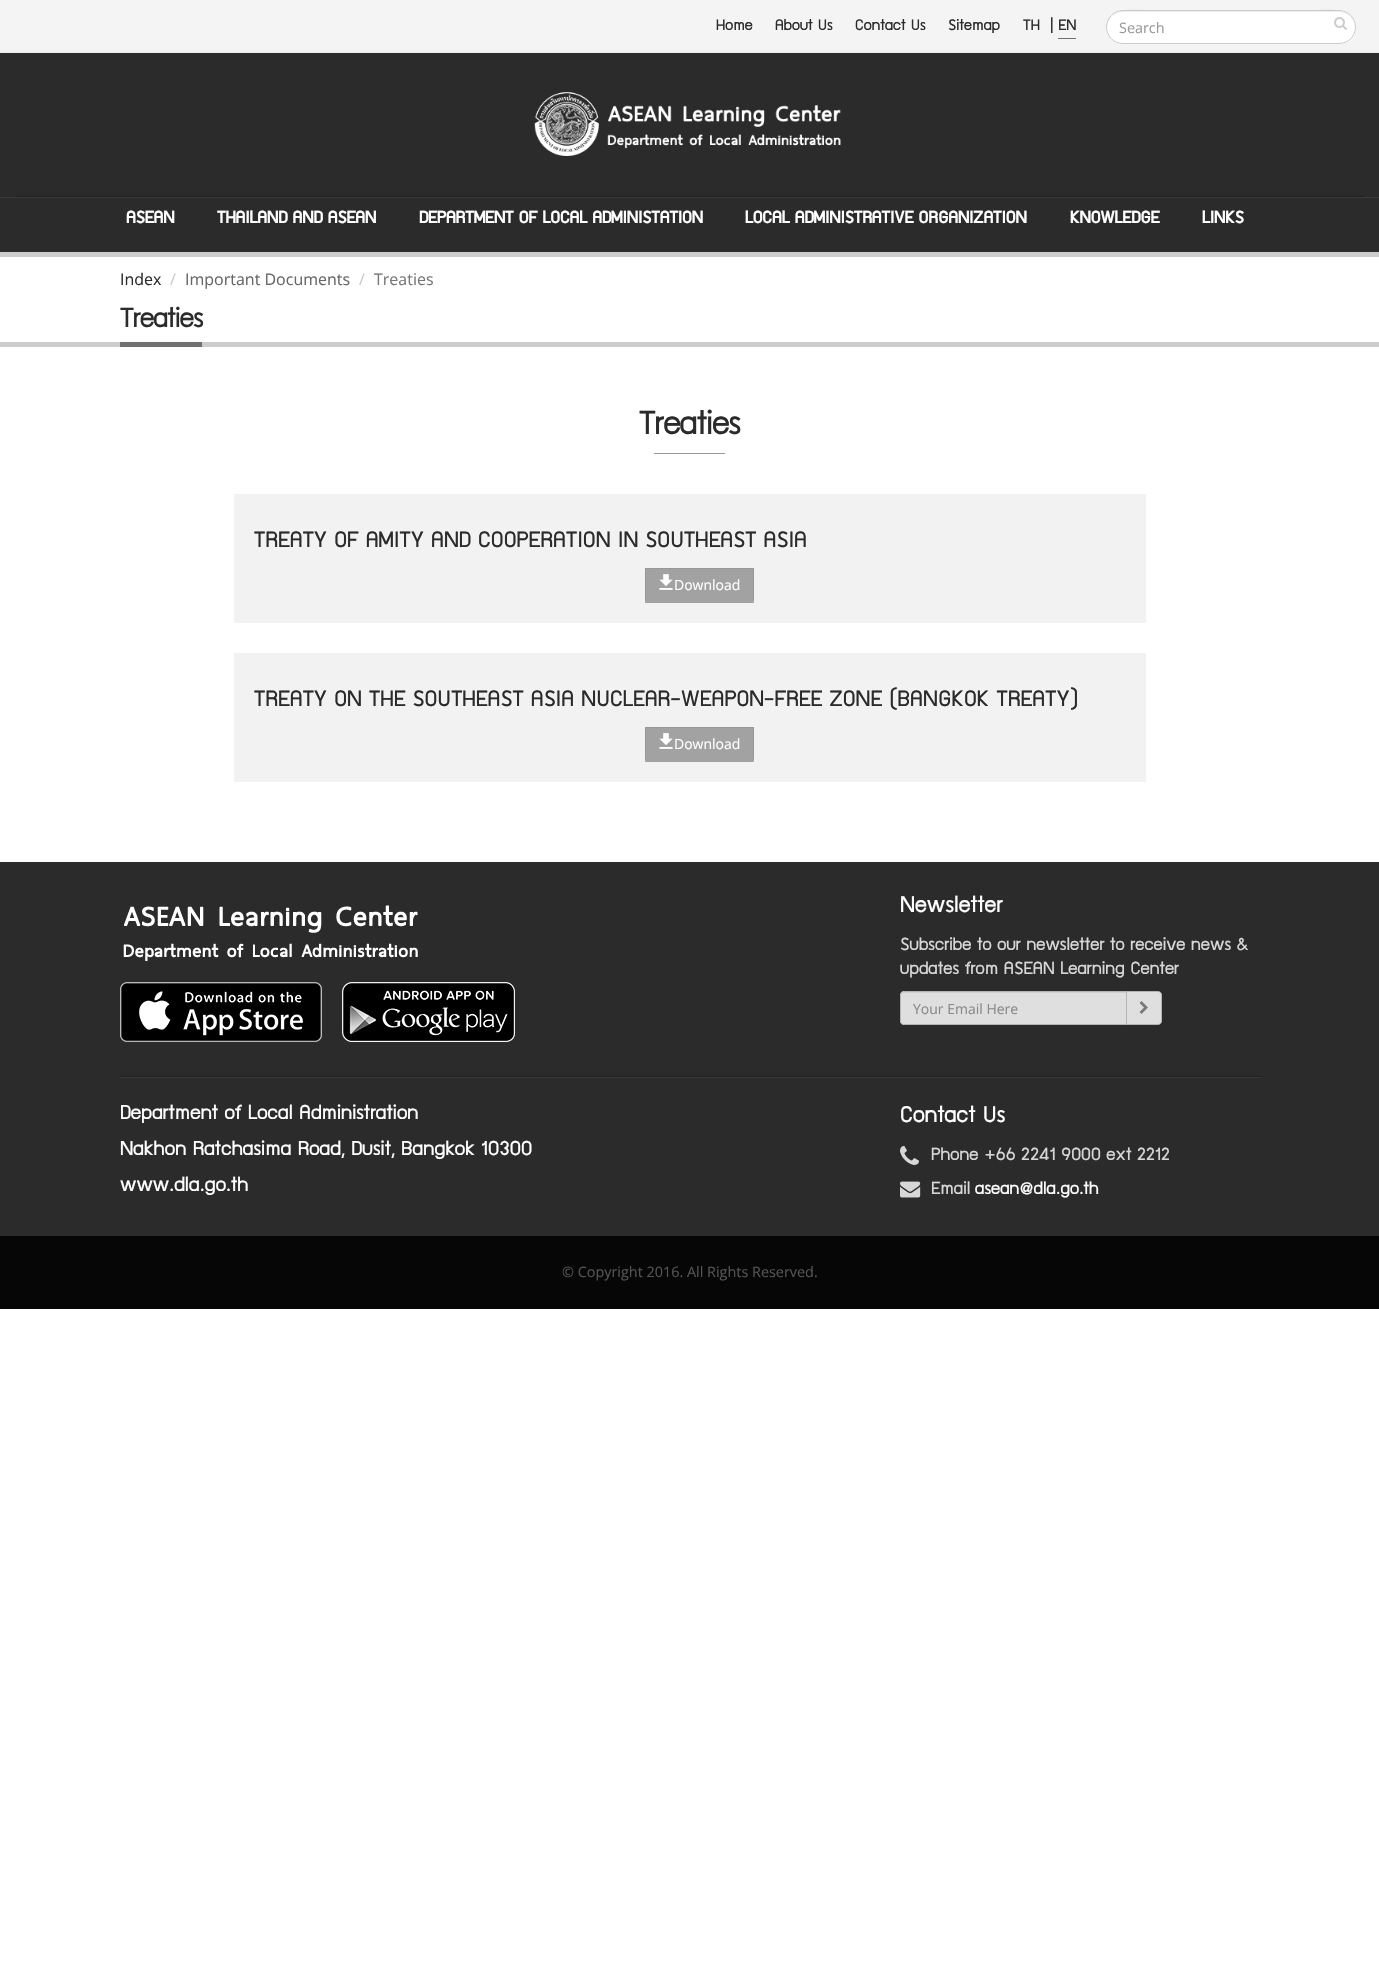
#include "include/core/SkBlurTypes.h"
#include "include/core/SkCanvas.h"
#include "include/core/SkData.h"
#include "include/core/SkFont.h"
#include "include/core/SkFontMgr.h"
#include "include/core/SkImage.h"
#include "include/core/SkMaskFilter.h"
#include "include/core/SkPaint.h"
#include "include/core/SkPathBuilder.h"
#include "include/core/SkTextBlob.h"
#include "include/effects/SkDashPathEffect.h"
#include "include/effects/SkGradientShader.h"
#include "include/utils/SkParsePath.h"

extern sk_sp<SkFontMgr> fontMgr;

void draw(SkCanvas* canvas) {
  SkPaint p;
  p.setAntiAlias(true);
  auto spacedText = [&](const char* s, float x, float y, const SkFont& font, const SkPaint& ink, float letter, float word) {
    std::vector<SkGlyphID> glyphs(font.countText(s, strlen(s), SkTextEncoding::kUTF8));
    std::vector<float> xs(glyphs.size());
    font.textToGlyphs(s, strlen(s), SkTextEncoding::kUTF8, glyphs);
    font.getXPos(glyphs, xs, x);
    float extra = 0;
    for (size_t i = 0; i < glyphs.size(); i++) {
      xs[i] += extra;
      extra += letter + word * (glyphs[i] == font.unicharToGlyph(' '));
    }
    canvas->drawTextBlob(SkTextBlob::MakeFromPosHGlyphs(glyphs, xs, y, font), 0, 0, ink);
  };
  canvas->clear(SK_ColorWHITE);
  p.setColor(SkColorSetRGB(43, 43, 43));
  canvas->drawRect(SkRect::MakeLTRB(0, 53, 1379, 252), p);
  p.setColor(SkColorSetRGB(244, 244, 244));
  canvas->drawRect(SkRect::MakeLTRB(0, 0, 1379, 52), p);
  p.setColor(SkColorSetRGB(237, 237, 237));
  canvas->drawRect(SkRect::MakeLTRB(0, 52, 1379, 53), p);
  p.setColor(SkColorSetRGB(112, 112, 112));
  canvas->drawRect(SkRect::MakeLTRB(1058, 38, 1076, 39), p);
  p.setColor(SK_ColorWHITE);
  canvas->drawRoundRect(SkRect::MakeLTRB(1106, 10, 1356, 44), 17, 17, p);
  p.setColor(SkColorSetARGB(18, 0, 0, 0));
  canvas->drawPath(SkPathBuilder().moveTo(1123, 12).lineTo(1339, 12).cubicTo(1348, 12, 1355, 19, 1355, 27).cubicTo(1356, 2, 1313, 11, 1303, 11).lineTo(1159, 11).cubicTo(1149, 11, 1106, 2, 1107, 27).cubicTo(1107, 19, 1114, 12, 1123, 12).close().detach(), p);
  p.setStyle(SkPaint::kStroke_Style);
  p.setStrokeWidth(1);
  p.setColor(SkColorSetRGB(204, 204, 204));
  canvas->drawRoundRect(SkRect::MakeLTRB(1106.5f, 10.5f, 1355.5f, 43.5f), 16.5f, 16.5f, p);
  canvas->drawImageRect(SkImages::DeferredFromEncodedData(SkData::MakeFromFileName("images/1.png")), SkRect::MakeLTRB(1334, 17, 1347, 30), SkSamplingOptions());
  p.setStyle(SkPaint::kFill_Style);
  p.setColor(SkColorSetRGB(32, 32, 32));
  canvas->drawRect(SkRect::MakeLTRB(15, 196, 1364, 197), p);
  canvas->drawImageRect(SkImages::DeferredFromEncodedData(SkData::MakeFromFileName("images/2.png")), SkRect::MakeLTRB(534, 92, 841, 156), SkSamplingOptions());
  p.setColor(SkColorSetRGB(58, 58, 58));
  canvas->drawRect(SkRect::MakeLTRB(0, 197, 1379, 198), p);
  p.setColor(SkColorSetRGB(204, 204, 204));
  canvas->drawRect(SkRect::MakeLTRB(0, 252, 1379, 257), p);
  canvas->drawRect(SkRect::MakeLTRB(0, 342, 1379, 347), p);
  p.setColor(SkColorSetRGB(112, 112, 112));
  canvas->drawRect(SkRect::MakeLTRB(120, 342, 202, 347), p);
  p.setColor(SkColorSetRGB(153, 153, 153));
  canvas->drawRect(SkRect::MakeLTRB(654, 453, 725, 454), p);
  p.setColor(SkColorSetRGB(242, 242, 242));
  canvas->drawRect(SkRect::MakeLTRB(234, 494, 1146, 623), p);
  p.setColor(SkColorSetRGB(162, 162, 162));
  canvas->drawRect(SkRect::MakeLTRB(646, 569, 753, 600), p);
  p.setColor(SkColorSetRGB(151, 151, 151));
  canvas->drawRect(SkRect::MakeLTRB(645, 568, 754, 569), p);
  canvas->drawPath(SkPathBuilder().moveTo(754, 568).lineTo(754, 603).lineTo(753, 600).lineTo(753, 569).close().detach(), p);
  p.setColor(SkColorSetRGB(162, 162, 162));
  canvas->drawPath(SkPathBuilder().moveTo(754, 603).lineTo(645, 603).lineTo(646, 600).lineTo(753, 600).close().detach(), p);
  p.setColor(SkColorSetRGB(151, 151, 151));
  canvas->drawPath(SkPathBuilder().moveTo(645, 603).lineTo(645, 568).lineTo(646, 569).lineTo(646, 600).close().detach(), p);
  canvas->drawImageRect(SkImages::DeferredFromEncodedData(SkData::MakeFromFileName("images/3.png")), SkRect::MakeLTRB(659, 574, 673, 590), SkSamplingOptions());
  p.setColor(SkColorSetRGB(242, 242, 242));
  canvas->drawRect(SkRect::MakeLTRB(234, 653, 1146, 782), p);
  p.setColor(SkColorSetRGB(162, 162, 162));
  canvas->drawRect(SkRect::MakeLTRB(646, 728, 753, 759), p);
  p.setColor(SkColorSetRGB(151, 151, 151));
  canvas->drawRect(SkRect::MakeLTRB(645, 727, 754, 728), p);
  canvas->drawPath(SkPathBuilder().moveTo(754, 727).lineTo(754, 762).lineTo(753, 759).lineTo(753, 728).close().detach(), p);
  p.setColor(SkColorSetRGB(162, 162, 162));
  canvas->drawPath(SkPathBuilder().moveTo(754, 762).lineTo(645, 762).lineTo(646, 759).lineTo(753, 759).close().detach(), p);
  p.setColor(SkColorSetRGB(151, 151, 151));
  canvas->drawPath(SkPathBuilder().moveTo(645, 762).lineTo(645, 727).lineTo(646, 728).lineTo(646, 759).close().detach(), p);
  canvas->drawImageRect(SkImages::DeferredFromEncodedData(SkData::MakeFromFileName("images/3.png")), SkRect::MakeLTRB(659, 733, 673, 749), SkSamplingOptions());
  p.setColor(SkColorSetRGB(43, 43, 43));
  canvas->drawRect(SkRect::MakeLTRB(0, 862, 1379, 1236), p);
  canvas->drawImageRect(SkImages::DeferredFromEncodedData(SkData::MakeFromFileName("images/4.png")), SkRect::MakeLTRB(123, 905, 418, 961), SkSamplingOptions());
  canvas->drawImageRect(SkImages::DeferredFromEncodedData(SkData::MakeFromFileName("images/5.png")), SkRect::MakeLTRB(120, 982, 322, 1042), SkSamplingOptions());
  canvas->drawImageRect(SkImages::DeferredFromEncodedData(SkData::MakeFromFileName("images/6.png")), SkRect::MakeLTRB(342, 982, 515, 1042), SkSamplingOptions());
  p.setColor(SkColorSetRGB(223, 223, 223));
  canvas->drawPath(SkPathBuilder().moveTo(904, 991).lineTo(1127, 991).lineTo(1127, 1025).lineTo(904, 1025).cubicTo(902, 1025, 900, 1023, 900, 1021).lineTo(900, 995).cubicTo(900, 993, 902, 991, 904, 991).close().detach(), p);
  p.setColor(SkColorSetRGB(207, 207, 207));
  canvas->drawPath(SkPathBuilder().moveTo(904, 993).lineTo(1126, 993).lineTo(1126, 992).lineTo(904, 992).cubicTo(902, 992, 901, 994, 901, 996).cubicTo(901, 994, 902, 993, 904, 993).close().detach(), p);
  p.setStyle(SkPaint::kStroke_Style);
  p.setColor(SkColorSetRGB(180, 180, 180));
  canvas->drawPath(SkPathBuilder().moveTo(904, 991.5f).lineTo(1126.5f, 991.5f).lineTo(1126.5f, 1024.5f).lineTo(904, 1024.5f).cubicTo(902, 1024.5f, 900.5f, 1023, 900.5f, 1021).lineTo(900.5f, 995).cubicTo(900.5f, 993, 902, 991.5f, 904, 991.5f).close().detach(), p);
  p.setStyle(SkPaint::kFill_Style);
  p.setColor(SkColorSetRGB(223, 223, 223));
  canvas->drawPath(SkPathBuilder().moveTo(1126.5f, 991.5f).lineTo(1158, 991.5f).cubicTo(1160, 991.5f, 1161.5f, 993, 1161.5f, 995).lineTo(1161.5f, 1021).cubicTo(1161.5f, 1023, 1160, 1024.5f, 1158, 1024.5f).lineTo(1126.5f, 1024.5f).close().detach(), p);
  p.setStyle(SkPaint::kStroke_Style);
  p.setColor(SkColorSetRGB(180, 180, 180));
  canvas->drawPath(SkPathBuilder().moveTo(1126.5f, 991.5f).lineTo(1158, 991.5f).cubicTo(1160, 991.5f, 1161.5f, 993, 1161.5f, 995).lineTo(1161.5f, 1021).cubicTo(1161.5f, 1023, 1160, 1024.5f, 1158, 1024.5f).lineTo(1126.5f, 1024.5f).close().detach(), p);
  canvas->drawImageRect(SkImages::DeferredFromEncodedData(SkData::MakeFromFileName("images/7.png")), SkRect::MakeLTRB(1139, 1001, 1148, 1014), SkSamplingOptions());
  canvas->drawImageRect(SkImages::DeferredFromEncodedData(SkData::MakeFromFileName("images/8.png")), SkRect::MakeLTRB(120, 1076, 1260, 1078), SkSamplingOptions());
  canvas->drawImageRect(SkImages::DeferredFromEncodedData(SkData::MakeFromFileName("images/9.png")), SkRect::MakeLTRB(900, 1146, 919, 1165), SkSamplingOptions());
  canvas->drawImageRect(SkImages::DeferredFromEncodedData(SkData::MakeFromFileName("images/10.png")), SkRect::MakeLTRB(900, 1181, 921, 1198), SkSamplingOptions());
  p.setStyle(SkPaint::kFill_Style);
  p.setColor(SkColorSetRGB(6, 6, 6));
  canvas->drawRect(SkRect::MakeLTRB(0, 1236, 1379, 1309), p);
  SkFont font1(fontMgr->matchFamilyStyle("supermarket", SkFontStyle::Normal()), 17.5f);
  font1.setSubpixel(true);
  p.setColor(SkColorSetRGB(43, 43, 43));
  canvas->drawString("Home", 716, 30, font1, p);
  canvas->drawString("About Us", 775, 30, font1, p);
  canvas->drawString("Contact Us", 855, 30, font1, p);
  canvas->drawString("Sitemap", 948, 30, font1, p);
  canvas->drawString("TH", 1023, 30, font1, p);
  canvas->drawString("| EN", 1050, 30, font1, p);
  SkFont font2(fontMgr->matchFamilyStyle("Open Sans", SkFontStyle::Normal()), 14.4f);
  font2.setSubpixel(true);
  p.setColor(SkColorSetRGB(153, 153, 153));
  canvas->drawString("Search", 1119, 33, font2, p);
  SkFont font3(fontMgr->matchFamilyStyle("supermarket", SkFontStyle::Bold()), 19.25f);
  font3.setSubpixel(true);
  p.setColor(SK_ColorWHITE);
  canvas->drawString("ASEAN", 126, 223, font3, p);
  canvas->drawString("THAILAND AND ASEAN", 217, 223, font3, p);
  canvas->drawString("DEPARTMENT OF LOCAL ADMINISTATION", 419, 223, font3, p);
  canvas->drawString("LOCAL ADMINISTRATIVE ORGANIZATION", 745, 223, font3, p);
  canvas->drawString("KNOWLEDGE", 1070, 223, font3, p);
  canvas->drawString("LINKS", 1202, 223, font3, p);
  SkFont font4(fontMgr->matchFamilyStyle("Open Sans", SkFontStyle::Normal()), 16);
  font4.setSubpixel(true);
  p.setColor(SkColorSetRGB(43, 43, 43));
  canvas->drawString("Index", 120, 285, font4, p);
  p.setColor(SkColorSetRGB(204, 204, 204));
  canvas->drawString("/", 170, 285, font4, p);
  p.setColor(SkColorSetRGB(102, 102, 102));
  canvas->drawString("Important Documents", 185, 285, font4, p);
  p.setColor(SkColorSetRGB(204, 204, 204));
  canvas->drawString("/", 359, 285, font4, p);
  p.setColor(SkColorSetRGB(119, 119, 119));
  canvas->drawString("Treaties", 374, 285, font4, p);
  SkFont font5(fontMgr->matchFamilyStyle("supermarket", SkFontStyle::Normal()), 32);
  font5.setSubpixel(true);
  p.setColor(SkColorSetRGB(43, 43, 43));
  spacedText("Treaties", 120, 327, font5, p, -1, 0);
  SkFont font6(fontMgr->matchFamilyStyle("supermarket", SkFontStyle::Normal()), 38.5f);
  font6.setSubpixel(true);
  spacedText("Treaties", 639, 434, font6, p, -1, 0);
  SkFont font7(fontMgr->matchFamilyStyle("supermarket", SkFontStyle::Normal()), 25.6f);
  font7.setSubpixel(true);
  canvas->drawString("TREATY OF AMITY AND COOPERATION IN SOUTHEAST ASIA", 254, 547, font7, p);
  SkFont font8(fontMgr->matchFamilyStyle("Open Sans", SkFontStyle::Normal()), 14);
  font8.setSubpixel(true);
  p.setColor(SK_ColorWHITE);
  canvas->drawString("Download", 674, 590, font8, p);
  p.setColor(SkColorSetRGB(43, 43, 43));
  canvas->drawString("TREATY ON THE SOUTHEAST ASIA NUCLEAR-WEAPON-FREE ZONE (BANGKOK TREATY)", 254, 706, font7, p);
  p.setColor(SK_ColorWHITE);
  canvas->drawString("Download", 674, 749, font8, p);
  SkFont font9(fontMgr->matchFamilyStyle("supermarket", SkFontStyle::Normal()), 26);
  font9.setSubpixel(true);
  canvas->drawString("Newsletter", 900, 912, font9, p);
  SkFont font10(fontMgr->matchFamilyStyle("supermarket", SkFontStyle::Normal()), 20.2f);
  font10.setSubpixel(true);
  p.setColor(SkColorSetRGB(215, 215, 215));
  canvas->drawString("Subscribe to our newsletter to receive news &", 900, 950, font10, p);
  canvas->drawString("updates from ASEAN Learning Center", 900, 974, font10, p);
  p.setColor(SkColorSetRGB(137, 137, 137));
  canvas->drawString("Your Email Here", 913, 1014, font8, p);
  SkFont font11(fontMgr->matchFamilyStyle("supermarket", SkFontStyle::Normal()), 23);
  font11.setSubpixel(true);
  p.setColor(SK_ColorWHITE);
  canvas->drawString("Department of Local Administration", 120, 1119, font11, p);
  canvas->drawString("Nakhon Ratchasima Road, Dusit, Bangkok 10300", 120, 1155, font11, p);
  canvas->drawString("www.dla.go.th", 120, 1191, font11, p);
  canvas->drawString("Contact Us", 900, 1122, font9, p);
  p.setColor(SkColorSetRGB(215, 215, 215));
  canvas->drawString("Phone +66 2241 9000 ext 2212", 931, 1160, font10, p);
  canvas->drawString("Email", 931, 1194, font10, p);
  p.setColor(SK_ColorWHITE);
  canvas->drawString("asean@dla.go.th", 975, 1194, font10, p);
  p.setColor(SkColorSetRGB(85, 85, 85));
  canvas->drawString("© Copyright 2016. All Rights Reserved.", 562, 1277, font2, p);
}
